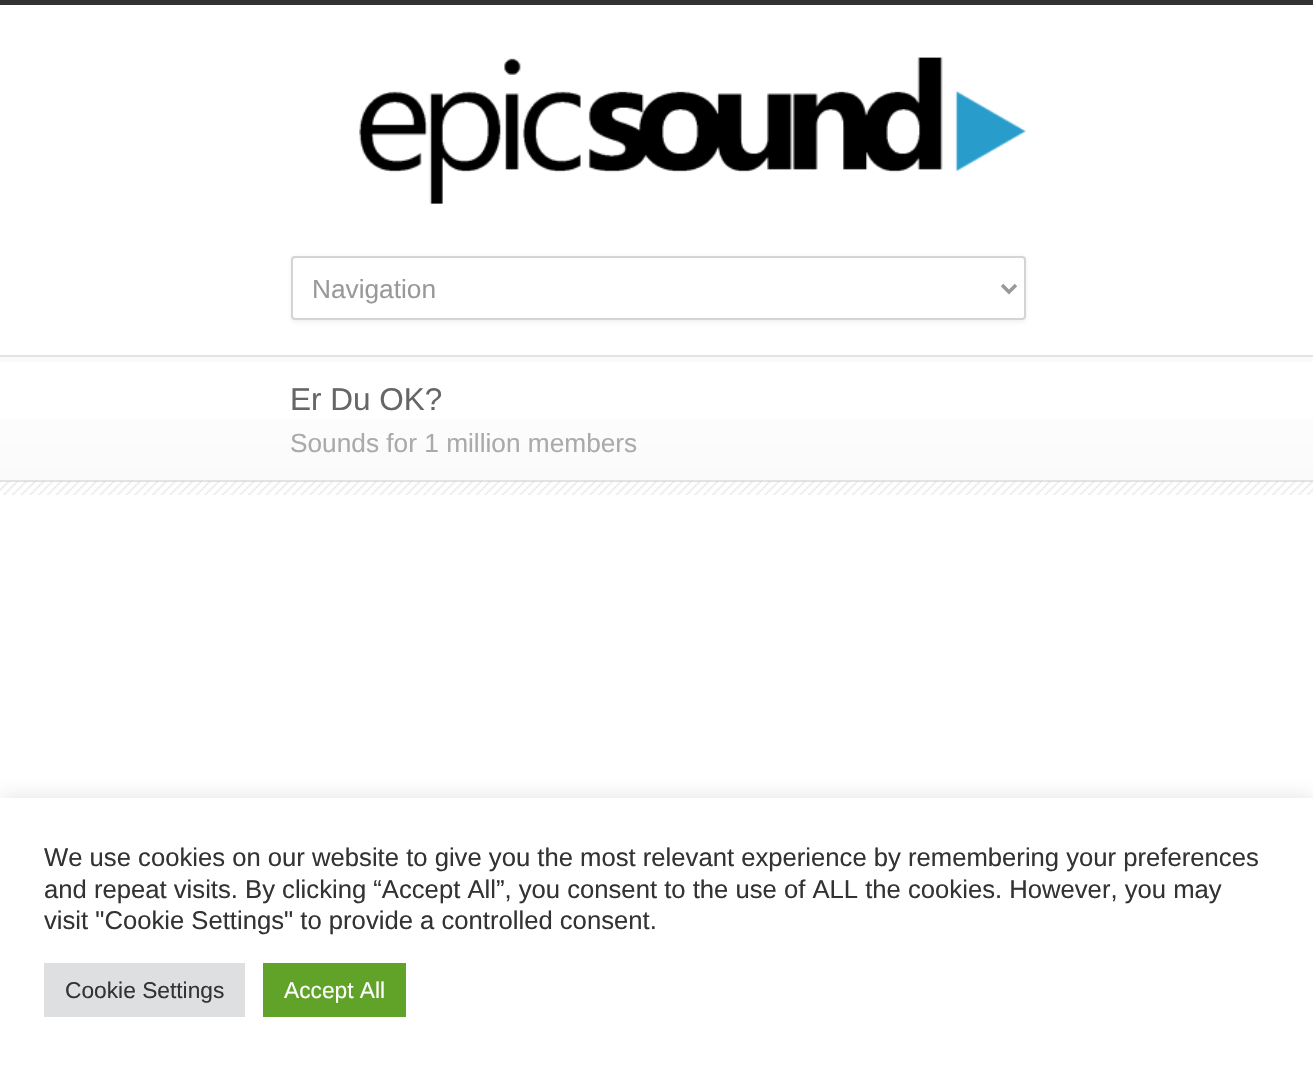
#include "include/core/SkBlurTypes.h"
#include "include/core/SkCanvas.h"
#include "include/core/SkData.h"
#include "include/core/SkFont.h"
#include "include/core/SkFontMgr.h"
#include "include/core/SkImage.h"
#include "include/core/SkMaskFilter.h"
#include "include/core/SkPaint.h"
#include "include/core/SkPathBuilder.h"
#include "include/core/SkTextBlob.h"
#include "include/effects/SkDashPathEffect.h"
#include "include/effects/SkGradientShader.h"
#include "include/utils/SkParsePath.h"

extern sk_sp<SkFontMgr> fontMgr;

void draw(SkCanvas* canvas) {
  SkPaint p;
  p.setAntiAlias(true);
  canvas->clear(SK_ColorWHITE);
  p.setColor(SkColorSetRGB(51, 51, 51));
  canvas->drawRect(SkRect::MakeLTRB(0, 0, 1313, 5), p);
  canvas->drawImageRect(SkImages::DeferredFromEncodedData(SkData::MakeFromFileName("images/1.png")), SkRect::MakeLTRB(359, 57, 1026, 204), SkSamplingOptions());
  p.setColor(SkColorSetARGB(51, 180, 180, 180));
  p.setMaskFilter(SkMaskFilter::MakeBlur(kNormal_SkBlurStyle, 2));
  canvas->drawRoundRect(SkRect::MakeLTRB(291, 257, 1026, 322), 4, 4, p);
  p.setMaskFilter(nullptr);
  p.setColor(SK_ColorWHITE);
  canvas->drawRoundRect(SkRect::MakeLTRB(292, 257, 1025, 319), 3, 3, p);
  p.setStyle(SkPaint::kStroke_Style);
  p.setStrokeWidth(2);
  p.setColor(SkColorSetRGB(212, 212, 212));
  canvas->drawRoundRect(SkRect::MakeLTRB(292, 257, 1025, 319), 3, 3, p);
  p.setStrokeWidth(3.5f);
  p.setColor(SkColorSetRGB(153, 153, 153));
  canvas->drawPath(SkPathBuilder().moveTo(1002, 285).lineTo(1009, 292).lineTo(1016, 285).detach(), p);
  p.setStyle(SkPaint::kFill_Style);
  {
    const SkColor colors[] = {SkColorSetRGB(250, 250, 250), SK_ColorWHITE};
    const float stops[] = {0, 1};
    const SkPoint ends[] = {{657, 480}, {657, 357}};
    p.setShader(SkGradientShader::MakeLinear(ends, colors, stops, 2, SkTileMode::kClamp));
    p.setAlpha(255);
  }
  canvas->drawRect(SkRect::MakeLTRB(0, 418, 1313, 480), p);
  p.setShader(nullptr);
  p.setColor(SkColorSetRGB(250, 250, 250));
  canvas->drawRect(SkRect::MakeLTRB(0, 357, 1313, 362), p);
  p.setColor(SkColorSetRGB(228, 228, 228));
  canvas->drawRect(SkRect::MakeLTRB(0, 355, 1313, 357), p);
  canvas->drawRect(SkRect::MakeLTRB(0, 480, 1313, 482), p);
  canvas->drawImageRect(SkImages::DeferredFromEncodedData(SkData::MakeFromFileName("images/2.png")), SkRect::MakeLTRB(0, 481, 1313, 495), SkSamplingOptions());
  p.setColor(SkColorSetARGB(77, 172, 171, 171));
  p.setMaskFilter(SkMaskFilter::MakeBlur(kNormal_SkBlurStyle, 9));
  canvas->drawRect(SkRect::MakeLTRB(0, 796, 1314, 1068), p);
  p.setMaskFilter(nullptr);
  p.setColor(SK_ColorWHITE);
  canvas->drawRect(SkRect::MakeLTRB(0, 798, 1313, 1068), p);
  p.setColor(SkColorSetRGB(222, 223, 224));
  canvas->drawRect(SkRect::MakeLTRB(44, 963, 245, 1017), p);
  p.setColor(SkColorSetRGB(97, 162, 41));
  canvas->drawRect(SkRect::MakeLTRB(263, 963, 406, 1017), p);
  SkFont font1(fontMgr->matchFamilyStyle("Liberation Sans", SkFontStyle::Normal()), 26.25f);
  font1.setSubpixel(true);
  p.setColor(SkColorSetRGB(153, 153, 153));
  canvas->drawString("Navigation", 312, 298, font1, p);
  SkFont font2(fontMgr->matchFamilyStyle("Liberation Sans", SkFontStyle::Normal()), 31.5f);
  font2.setSubpixel(true);
  p.setColor(SkColorSetRGB(102, 102, 102));
  canvas->drawString("Er Du OK?", 290, 410, font2, p);
  p.setColor(SkColorSetRGB(170, 170, 170));
  canvas->drawString("Sounds for 1 million members", 290, 452, font1, p);
  SkFont font3(fontMgr->matchFamilyStyle("Liberation Sans", SkFontStyle::Normal()), 25.65f);
  font3.setSubpixel(true);
  p.setColor(SkColorSetRGB(51, 51, 51));
  canvas->drawString("We use cookies on our website to give you the most relevant experience by remembering your preferences", 44, 866, font3, p);
  canvas->drawString("and repeat visits. By clicking “Accept All”, you consent to the use of ALL the cookies. However, you may", 44, 898, font3, p);
  canvas->drawString("visit \"Cookie Settings\" to provide a controlled consent.", 44, 929, font3, p);
  SkFont font4(fontMgr->matchFamilyStyle("Liberation Sans", SkFontStyle::Normal()), 22.75f);
  font4.setSubpixel(true);
  canvas->drawString("Cookie Settings", 65, 998, font4, p);
  p.setColor(SK_ColorWHITE);
  canvas->drawString("Accept All", 284, 998, font4, p);
}
